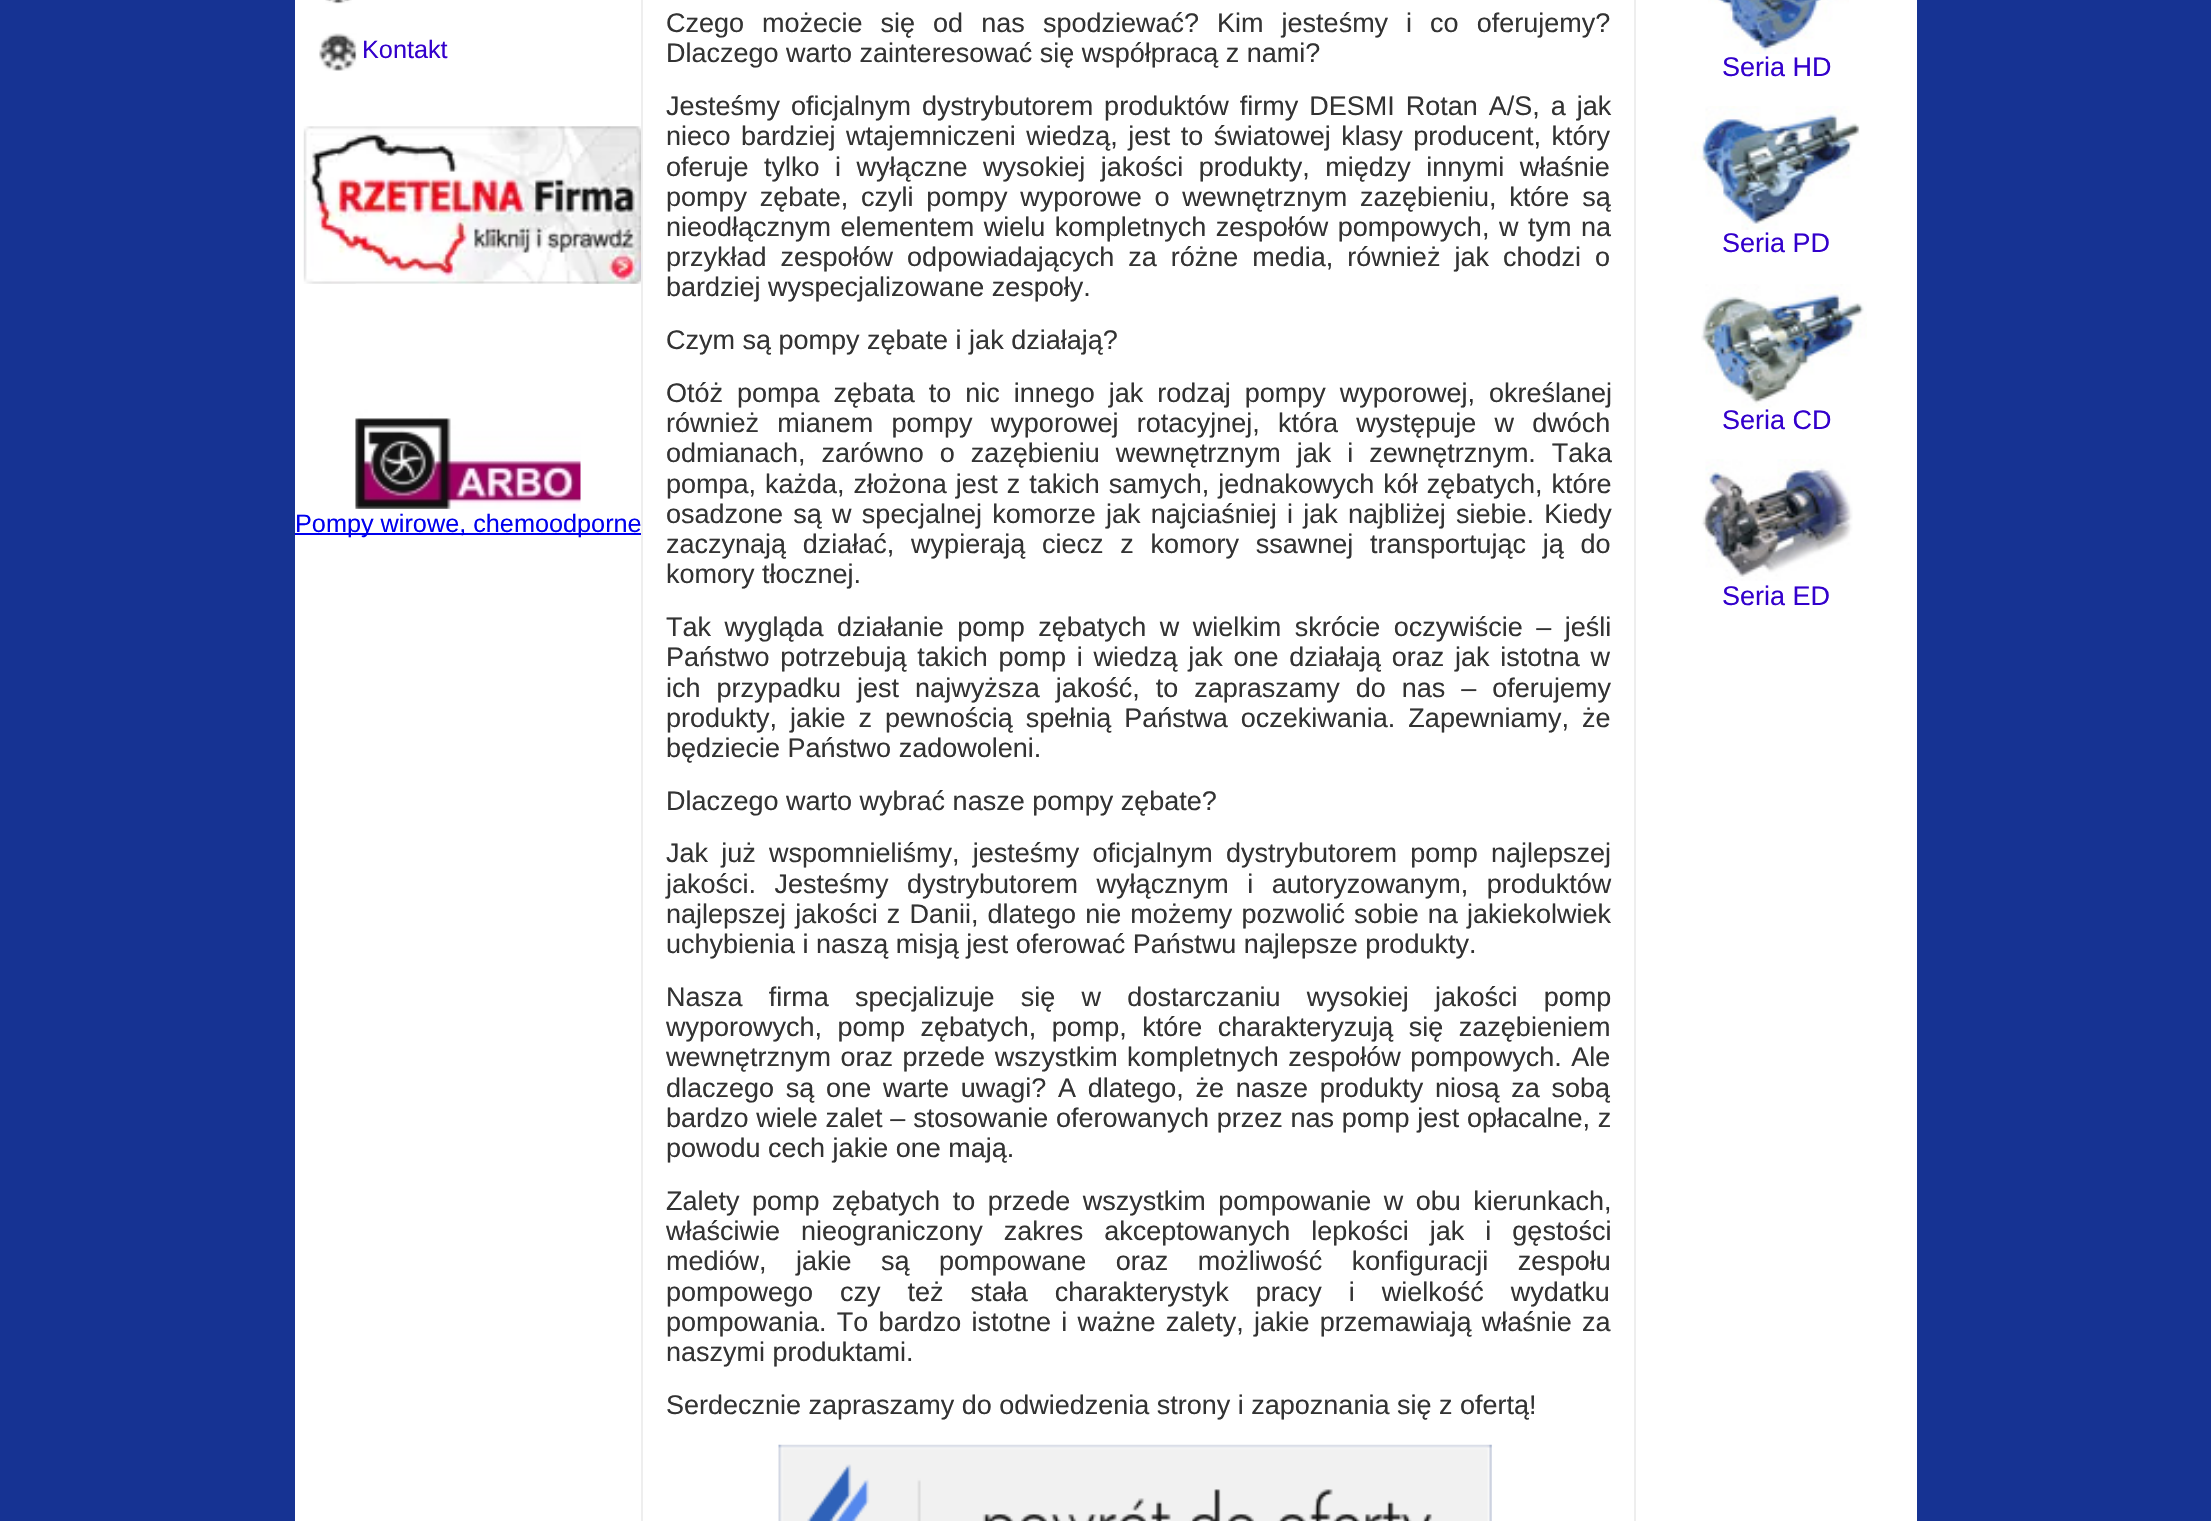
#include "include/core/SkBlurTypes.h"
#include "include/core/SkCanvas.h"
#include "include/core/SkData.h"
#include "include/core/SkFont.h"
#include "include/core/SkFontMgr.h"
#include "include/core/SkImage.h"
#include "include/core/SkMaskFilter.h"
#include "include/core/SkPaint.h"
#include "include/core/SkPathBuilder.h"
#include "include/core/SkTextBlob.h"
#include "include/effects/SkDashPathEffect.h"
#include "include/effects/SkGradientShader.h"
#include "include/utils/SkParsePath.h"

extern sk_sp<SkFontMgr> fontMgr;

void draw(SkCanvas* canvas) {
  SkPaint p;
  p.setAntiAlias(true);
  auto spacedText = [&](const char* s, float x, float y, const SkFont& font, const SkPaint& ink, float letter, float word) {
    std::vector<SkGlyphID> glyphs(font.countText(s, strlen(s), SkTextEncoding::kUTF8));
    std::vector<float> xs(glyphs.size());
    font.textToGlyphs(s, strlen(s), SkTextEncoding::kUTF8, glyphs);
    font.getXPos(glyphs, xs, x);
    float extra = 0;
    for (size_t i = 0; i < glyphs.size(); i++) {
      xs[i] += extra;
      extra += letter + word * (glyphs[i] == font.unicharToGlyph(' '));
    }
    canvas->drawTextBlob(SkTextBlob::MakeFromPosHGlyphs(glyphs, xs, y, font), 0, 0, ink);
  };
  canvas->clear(SkColorSetRGB(22, 51, 147));
  p.setColor(SK_ColorWHITE);
  canvas->drawRect(SkRect::MakeLTRB(295, 0, 641, 1521), p);
  canvas->drawImageRect(SkImages::DeferredFromEncodedData(SkData::MakeFromFileName("images/1.png")), SkRect::MakeLTRB(325, 0, 352, 4), SkSamplingOptions());
  canvas->drawImageRect(SkImages::DeferredFromEncodedData(SkData::MakeFromFileName("images/2.png")), SkRect::MakeLTRB(319, 33, 357, 71), SkSamplingOptions());
  canvas->drawImageRect(SkImages::DeferredFromEncodedData(SkData::MakeFromFileName("images/3.png")), SkRect::MakeLTRB(303, 126, 641, 284), SkSamplingOptions());
  canvas->drawImageRect(SkImages::DeferredFromEncodedData(SkData::MakeFromFileName("images/4.png")), SkRect::MakeLTRB(355, 283, 581, 509), SkSamplingOptions());
  p.setColor(SkColorSetRGB(0, 0, 238));
  canvas->drawRect(SkRect::MakeLTRB(295, 533, 641, 535), p);
  p.setColor(SK_ColorWHITE);
  canvas->drawRect(SkRect::MakeLTRB(643, 0, 1634, 1521), p);
  p.setColor(SkColorSetRGB(238, 238, 238));
  canvas->drawRect(SkRect::MakeLTRB(1634, 0, 1636, 1521), p);
  canvas->drawRect(SkRect::MakeLTRB(641, 0, 643, 1521), p);
  canvas->drawImageRect(SkImages::DeferredFromEncodedData(SkData::MakeFromFileName("images/5.png")), SkRect::MakeLTRB(778, 1444, 1492, 1521), SkSamplingOptions());
  p.setColor(SK_ColorWHITE);
  canvas->drawRect(SkRect::MakeLTRB(1636, 0, 1917, 1521), p);
  canvas->drawImageRect(SkImages::DeferredFromEncodedData(SkData::MakeFromFileName("images/6.png")), SkRect::MakeLTRB(1708, 0, 1849, 54), SkSamplingOptions());
  canvas->drawImageRect(SkImages::DeferredFromEncodedData(SkData::MakeFromFileName("images/7.png")), SkRect::MakeLTRB(1690, 106, 1860, 230), SkSamplingOptions());
  canvas->drawImageRect(SkImages::DeferredFromEncodedData(SkData::MakeFromFileName("images/8.png")), SkRect::MakeLTRB(1701, 284, 1867, 408), SkSamplingOptions());
  canvas->drawImageRect(SkImages::DeferredFromEncodedData(SkData::MakeFromFileName("images/9.png")), SkRect::MakeLTRB(1701, 459, 1853, 581), SkSamplingOptions());
  SkFont font1(fontMgr->matchFamilyStyle("Liberation Sans", SkFontStyle::Normal()), 25.25f);
  font1.setSubpixel(true);
  p.setColor(SkColorSetRGB(51, 0, 204));
  canvas->drawString("Kontakt", 362, 58, font1, p);
  p.setColor(SkColorSetRGB(0, 0, 238));
  canvas->drawString("Pompy wirowe, chemoodporne", 295, 532, font1, p);
  SkFont font2(fontMgr->matchFamilyStyle("Liberation Sans", SkFontStyle::Normal()), 27);
  font2.setSubpixel(true);
  p.setColor(SkColorSetRGB(51, 51, 51));
  spacedText("Czego możecie się od nas", 666, 32, font2, p, 0, 10.5f);
  spacedText("spodziewać? Kim jesteśmy i co oferujemy?", 1043, 32, font2, p, 0, 10.5f);
  canvas->drawString("Dlaczego warto zainteresować się współpracą z nami?", 666, 62, font2, p);
  spacedText("Jesteśmy oficjalnym dystrybutorem produktów firmy DESMI Rotan A/S, a jak", 666, 115, font2, p, 0, 3.5f);
  spacedText("nieco bardziej wtajemniczeni wiedzą, jest to światowej klasy producent, który", 666, 145, font2, p, 0, 3);
  spacedText("oferuje tylko i wyłączne wysokiej jakości produkty, między innymi właśnie", 666, 176, font2, p, 0, 8);
  spacedText("pompy zębate, czyli pompy wyporowe o wewnętrznym zazębieniu, które są", 666, 206, font2, p, 0, 5.25f);
  spacedText("nieodłącznym elementem wielu kompletnych zespołów pompowych, w tym na", 666, 236, font2, p, 0, 2);
  spacedText("przykład zespołów odpowiadających za różne media, również jak chodzi o", 666, 266, font2, p, 0, 6.5f);
  canvas->drawString("bardziej wyspecjalizowane zespoły.", 666, 296, font2, p);
  canvas->drawString("Czym są pompy zębate i jak działają?", 666, 349, font2, p);
  spacedText("Otóż pompa zębata to nic innego jak rodzaj pompy wyporowej, określanej", 666, 402, font2, p, 0, 6.5f);
  spacedText("również mianem pompy wyporowej rotacyjnej, która występuje w dwóch", 666, 432, font2, p, 0, 10.75f);
  spacedText("odmianach, zarówno o zazębieniu wewnętrznym jak i zewnętrznym. Taka", 666, 462, font2, p, 0, 8.5f);
  spacedText("pompa, każda, złożona jest z takich samych, jednakowych kół zębatych, które", 666, 493, font2, p, 0, 1.5f);
  spacedText("osadzone są w specjalnej komorze jak najciaśniej i jak najbliżej siebie. Kiedy", 666, 523, font2, p, 0, 2.75f);
  spacedText("zaczynają działać, wypierają ciecz z komory ssawnej transportując ją do", 666, 553, font2, p, 0, 9.25f);
  canvas->drawString("komory tłocznej.", 666, 583, font2, p);
  spacedText("Tak wygląda działanie pomp zębatych w wielkim skrócie oczywiście – jeśli", 666, 636, font2, p, 0, 6);
  spacedText("Państwo potrzebują takich pomp i wiedzą jak one działają oraz jak istotna w", 666, 666, font2, p, 0, 3.25f);
  spacedText("ich przypadku jest najwyższa jakość, to zapraszamy do nas – oferujemy", 666, 697, font2, p, 0, 8.5f);
  spacedText("produkty, jakie z pewnością spełnią Państwa oczekiwania. Zapewniamy, że", 666, 727, font2, p, 0, 5.5f);
  canvas->drawString("będziecie Państwo zadowoleni.", 666, 757, font2, p);
  canvas->drawString("Dlaczego warto wybrać nasze pompy zębate?", 666, 810, font2, p);
  spacedText("Jak już wspomnieliśmy, jesteśmy oficjalnym dystrybutorem pomp najlepszej", 666, 862, font2, p, 0, 5.75f);
  spacedText("jakości. Jesteśmy dystrybutorem wyłącznym i autoryzowanym, produktów", 666, 893, font2, p, 0, 11);
  spacedText("najlepszej jakości z Danii, dlatego nie możemy pozwolić sobie na jakiekolwiek", 666, 923, font2, p, 0, 1.6f);
  canvas->drawString("uchybienia i naszą misją jest oferować Państwu najlepsze produkty.", 666, 953, font2, p);
  spacedText("Nasza firma specjalizuje się w dostarczaniu wysokiej jakości pomp", 666, 1006, font2, p, 0, 18.75f);
  spacedText("wyporowych, pomp zębatych, pomp, które charakteryzują się zazębieniem", 666, 1036, font2, p, 0, 8);
  spacedText("wewnętrznym oraz przede wszystkim kompletnych zespołów pompowych. Ale", 666, 1066, font2, p, 0, 2);
  spacedText("dlaczego są one warte uwagi? A dlatego, że nasze produkty niosą za sobą", 666, 1097, font2, p, 0, 4.25f);
  spacedText("bardzo wiele zalet – stosowanie oferowanych przez nas pomp jest opłacalne, z", 666, 1127, font2, p, 0, 0.25f);
  canvas->drawString("powodu cech jakie one mają.", 666, 1157, font2, p);
  spacedText("Zalety pomp zębatych to przede wszystkim pompowanie w obu kierunkach,", 666, 1210, font2, p, 0, 5);
  spacedText("właściwie nieograniczony zakres akceptowanych lepkości jak i gęstości", 666, 1240, font2, p, 0, 13.5f);
  spacedText("mediów, jakie są pompowane oraz możliwość konfiguracji zespołu", 666, 1270, font2, p, 0, 22);
  spacedText("pompowego czy też stała charakterystyk pracy i wielkość wydatku", 666, 1301, font2, p, 0, 19.5f);
  spacedText("pompowania. To bardzo istotne i ważne zalety, jakie przemawiają właśnie za", 666, 1331, font2, p, 0, 2.75f);
  canvas->drawString("naszymi produktami.", 666, 1361, font2, p);
  canvas->drawString("Serdecznie zapraszamy do odwiedzenia strony i zapoznania się z ofertą!", 666, 1414, font2, p);
  p.setColor(SkColorSetRGB(51, 0, 204));
  canvas->drawString("Seria HD", 1722, 76, font2, p);
  canvas->drawString("Seria PD", 1722, 252, font2, p);
  canvas->drawString("Seria CD", 1722, 429, font2, p);
  canvas->drawString("Seria ED", 1722, 605, font2, p);
}
